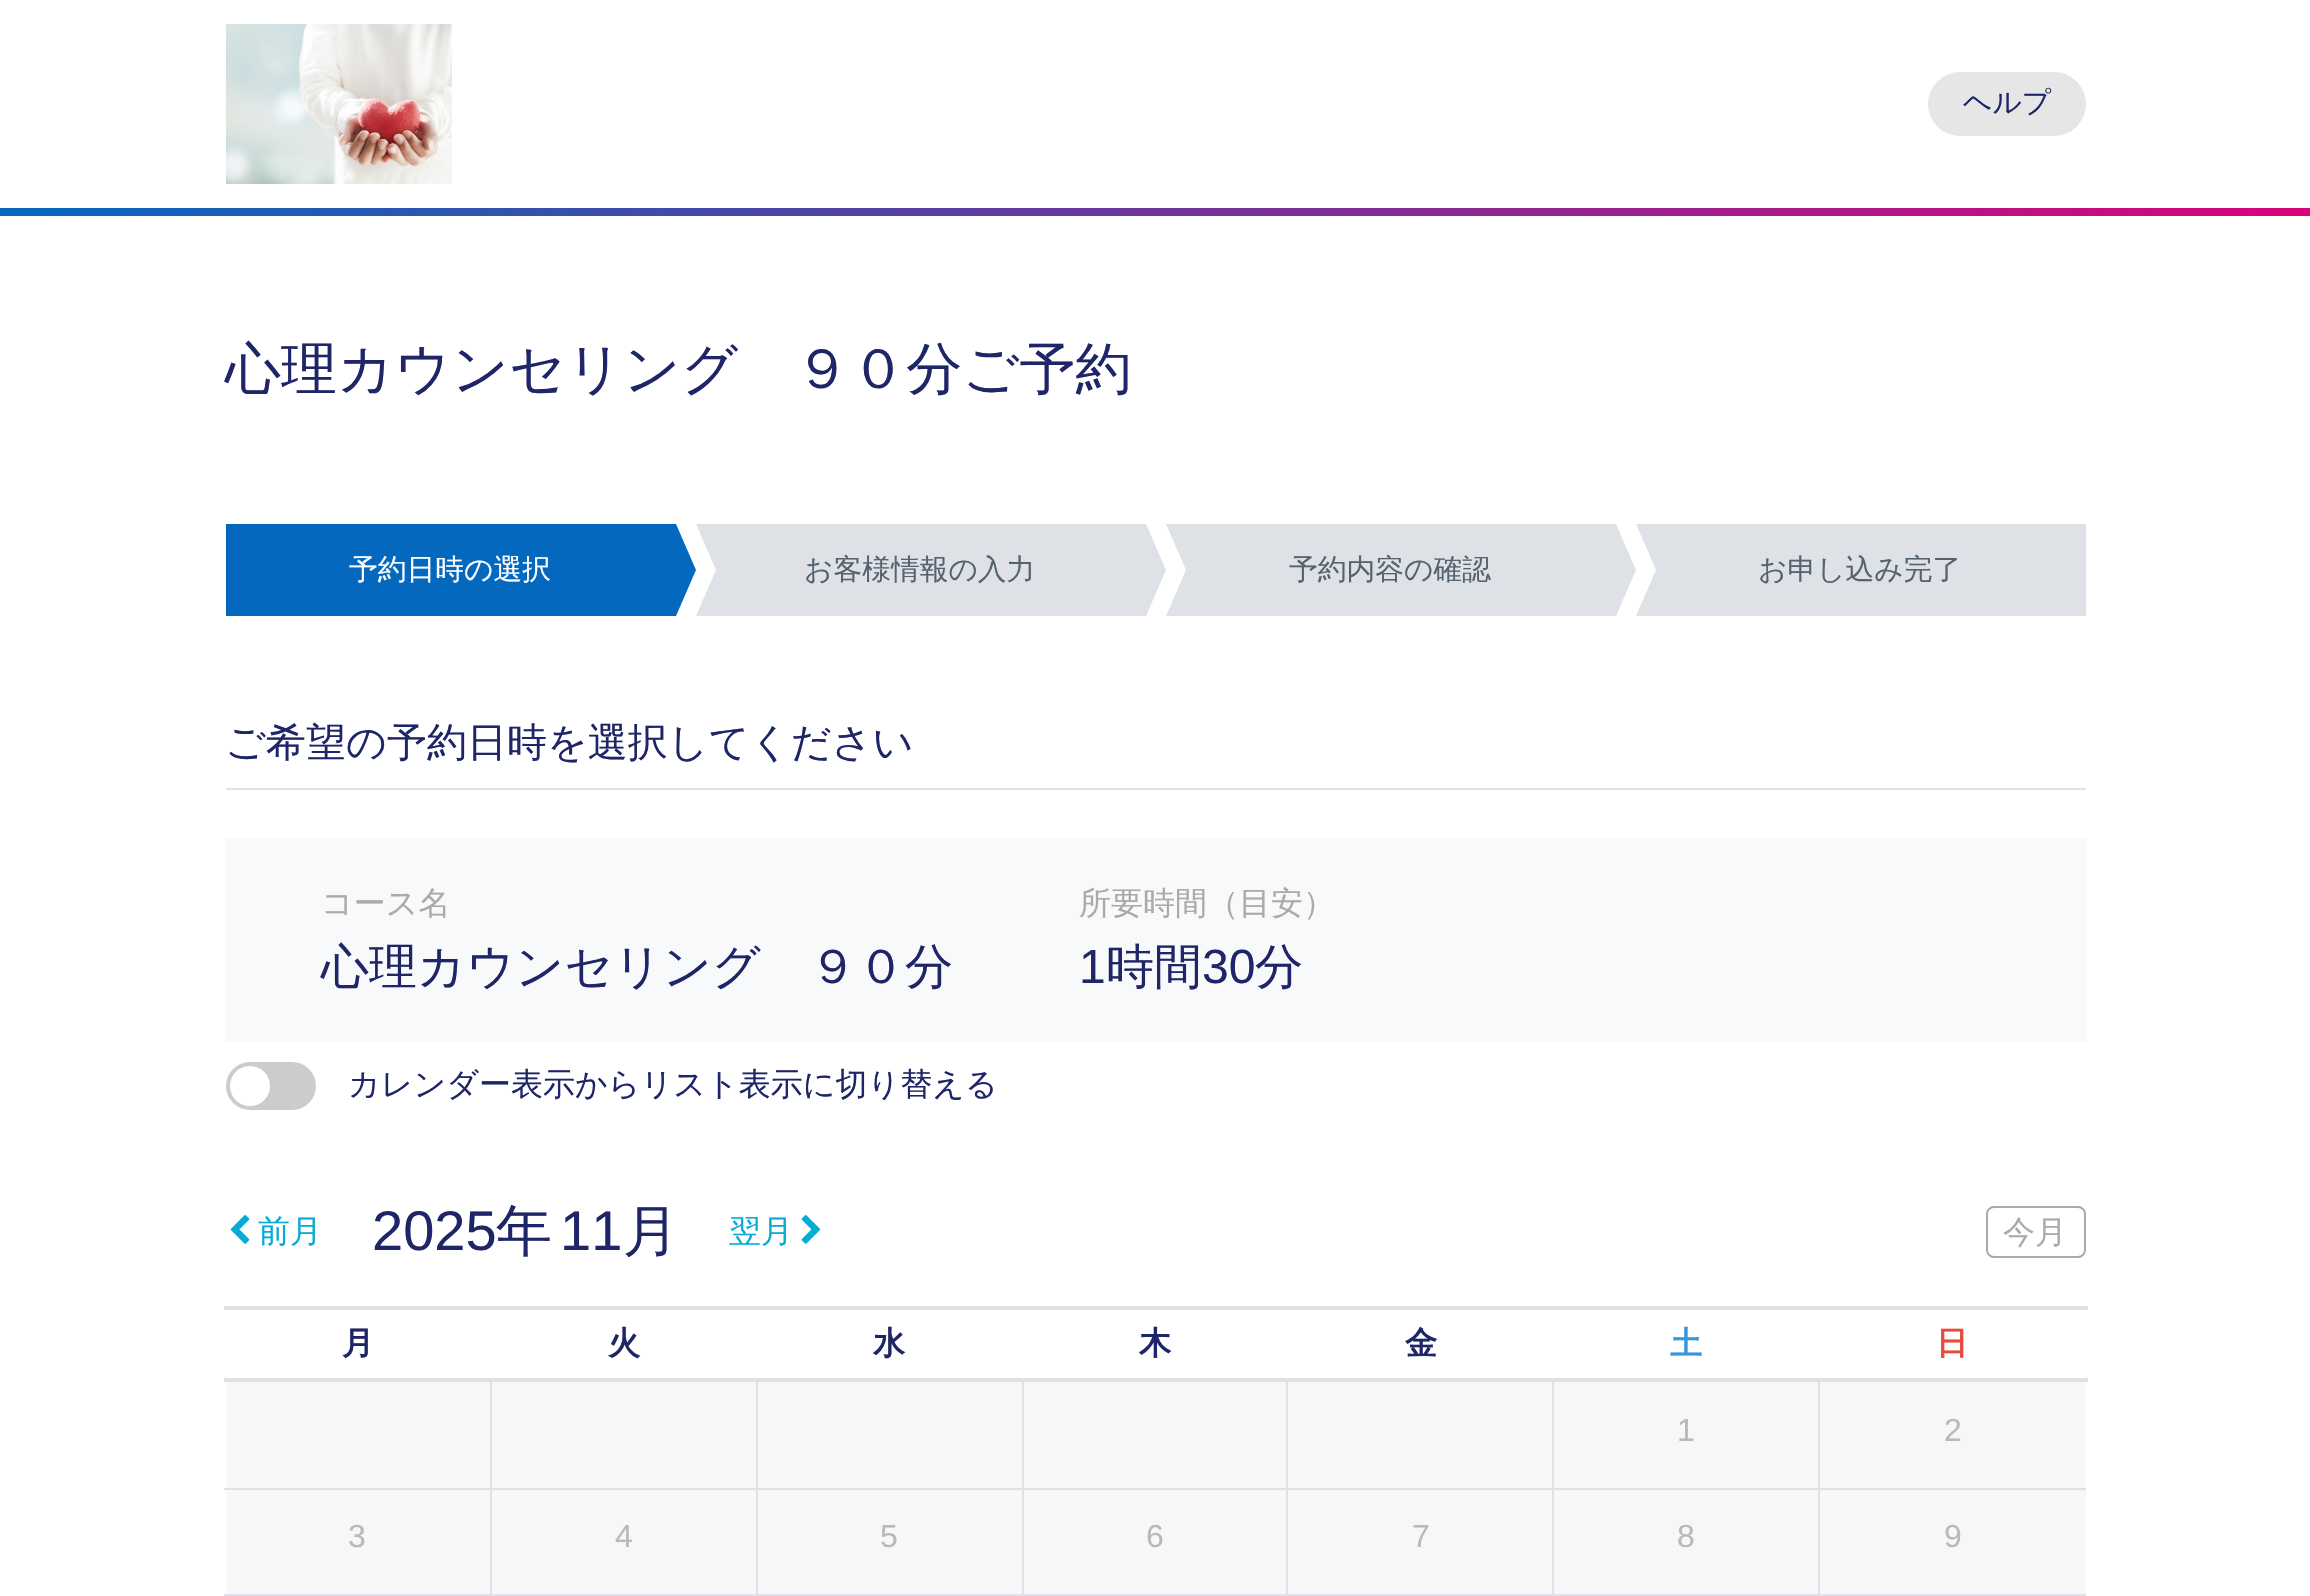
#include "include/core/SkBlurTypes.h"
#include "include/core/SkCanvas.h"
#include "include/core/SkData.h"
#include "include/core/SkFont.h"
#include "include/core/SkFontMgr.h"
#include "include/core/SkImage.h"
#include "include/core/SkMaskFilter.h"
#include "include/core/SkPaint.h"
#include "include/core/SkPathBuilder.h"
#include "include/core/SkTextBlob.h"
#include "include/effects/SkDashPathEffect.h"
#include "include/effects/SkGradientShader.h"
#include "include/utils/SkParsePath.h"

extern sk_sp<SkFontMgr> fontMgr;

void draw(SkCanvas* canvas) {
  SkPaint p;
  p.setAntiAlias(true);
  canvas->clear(SK_ColorWHITE);
  canvas->drawImageRect(SkImages::DeferredFromEncodedData(SkData::MakeFromFileName("images/1.png")), SkRect::MakeLTRB(226, 24, 452, 184), SkSamplingOptions());
  p.setColor(SkColorSetRGB(230, 230, 230));
  canvas->drawRoundRect(SkRect::MakeLTRB(1928, 72, 2086, 136), 32, 32, p);
  {
    const SkColor colors[] = {SkColorSetRGB(4, 104, 191), SkColorSetRGB(217, 4, 121)};
    const float stops[] = {0, 1};
    const SkPoint ends[] = {{0, 212}, {2310, 212}};
    p.setShader(SkGradientShader::MakeLinear(ends, colors, stops, 2, SkTileMode::kClamp));
    p.setAlpha(255);
  }
  canvas->drawRect(SkRect::MakeLTRB(0, 208, 2310, 216), p);
  p.setShader(nullptr);
  p.setColor(SkColorSetRGB(4, 104, 191));
  canvas->drawRect(SkRect::MakeLTRB(226, 524, 676, 616), p);
  canvas->drawPath(SkPathBuilder().moveTo(676, 616).lineTo(676, 524).lineTo(696, 570).close().detach(), p);
  p.setColor(SkColorSetRGB(222, 226, 230));
  canvas->drawRect(SkRect::MakeLTRB(696, 524, 1146, 616), p);
  p.setColor(SK_ColorWHITE);
  canvas->drawPath(SkPathBuilder().moveTo(696, 616).lineTo(696, 524).lineTo(716, 570).close().detach(), p);
  p.setColor(SkColorSetRGB(222, 226, 230));
  canvas->drawPath(SkPathBuilder().moveTo(1146, 616).lineTo(1146, 524).lineTo(1166, 570).close().detach(), p);
  canvas->drawRect(SkRect::MakeLTRB(1166, 524, 1616, 616), p);
  p.setColor(SK_ColorWHITE);
  canvas->drawPath(SkPathBuilder().moveTo(1166, 616).lineTo(1166, 524).lineTo(1186, 570).close().detach(), p);
  p.setColor(SkColorSetRGB(222, 226, 230));
  canvas->drawPath(SkPathBuilder().moveTo(1616, 616).lineTo(1616, 524).lineTo(1636, 570).close().detach(), p);
  canvas->drawRect(SkRect::MakeLTRB(1636, 524, 2086, 616), p);
  p.setColor(SK_ColorWHITE);
  canvas->drawPath(SkPathBuilder().moveTo(1636, 616).lineTo(1636, 524).lineTo(1656, 570).close().detach(), p);
  p.setColor(SkColorSetRGB(222, 226, 230));
  canvas->drawRect(SkRect::MakeLTRB(226, 788, 2086, 790), p);
  p.setColor(SkColorSetRGB(248, 249, 250));
  canvas->drawRect(SkRect::MakeLTRB(226, 838, 2086, 1042), p);
  p.setColor(SkColorSetRGB(204, 204, 204));
  canvas->drawRoundRect(SkRect::MakeLTRB(226, 1062, 316, 1110), 24, 24, p);
  p.setColor(SK_ColorWHITE);
  canvas->drawCircle(250, 1086, 20, p);
  canvas->drawImageRect(SkImages::DeferredFromEncodedData(SkData::MakeFromFileName("images/2.png")), SkRect::MakeLTRB(230, 1215, 250, 1244), SkSamplingOptions());
  canvas->drawImageRect(SkImages::DeferredFromEncodedData(SkData::MakeFromFileName("images/3.png")), SkRect::MakeLTRB(801, 1215, 821, 1244), SkSamplingOptions());
  p.setStyle(SkPaint::kStroke_Style);
  p.setStrokeWidth(2);
  p.setColor(SkColorSetRGB(170, 170, 170));
  canvas->drawRoundRect(SkRect::MakeLTRB(1987, 1207, 2085, 1257), 7, 7, p);
  p.setStyle(SkPaint::kFill_Style);
  p.setColor(SkColorSetRGB(222, 226, 230));
  canvas->drawRect(SkRect::MakeLTRB(224, 1306, 2088, 1310), p);
  canvas->drawRect(SkRect::MakeLTRB(1818, 1594, 2086, 1596), p);
  canvas->drawRect(SkRect::MakeLTRB(1818, 1488, 1820, 1596), p);
  canvas->drawRect(SkRect::MakeLTRB(1818, 1488, 2086, 1490), p);
  canvas->drawRect(SkRect::MakeLTRB(1818, 1380, 1820, 1490), p);
  canvas->drawRect(SkRect::MakeLTRB(1552, 1594, 1820, 1596), p);
  canvas->drawRect(SkRect::MakeLTRB(1552, 1488, 1554, 1596), p);
  canvas->drawRect(SkRect::MakeLTRB(1552, 1488, 1820, 1490), p);
  canvas->drawRect(SkRect::MakeLTRB(1552, 1380, 1554, 1490), p);
  canvas->drawRect(SkRect::MakeLTRB(1286, 1594, 1554, 1596), p);
  canvas->drawRect(SkRect::MakeLTRB(1286, 1488, 1288, 1596), p);
  canvas->drawRect(SkRect::MakeLTRB(1286, 1488, 1554, 1490), p);
  canvas->drawRect(SkRect::MakeLTRB(1286, 1380, 1288, 1490), p);
  canvas->drawRect(SkRect::MakeLTRB(1022, 1594, 1288, 1596), p);
  canvas->drawRect(SkRect::MakeLTRB(1022, 1488, 1024, 1596), p);
  canvas->drawRect(SkRect::MakeLTRB(1022, 1488, 1288, 1490), p);
  canvas->drawRect(SkRect::MakeLTRB(1022, 1380, 1024, 1490), p);
  canvas->drawRect(SkRect::MakeLTRB(756, 1594, 1024, 1596), p);
  canvas->drawRect(SkRect::MakeLTRB(756, 1488, 758, 1596), p);
  canvas->drawRect(SkRect::MakeLTRB(756, 1488, 1024, 1490), p);
  canvas->drawRect(SkRect::MakeLTRB(756, 1380, 758, 1490), p);
  canvas->drawRect(SkRect::MakeLTRB(490, 1594, 758, 1596), p);
  canvas->drawRect(SkRect::MakeLTRB(490, 1488, 492, 1596), p);
  canvas->drawRect(SkRect::MakeLTRB(490, 1488, 758, 1490), p);
  canvas->drawRect(SkRect::MakeLTRB(490, 1380, 492, 1490), p);
  canvas->drawRect(SkRect::MakeLTRB(224, 1378, 2088, 1382), p);
  p.setColor(SkColorSetRGB(247, 247, 247));
  canvas->drawRect(SkRect::MakeLTRB(226, 1382, 490, 1488), p);
  p.setColor(SkColorSetRGB(222, 226, 230));
  canvas->drawRect(SkRect::MakeLTRB(224, 1488, 492, 1490), p);
  p.setColor(SkColorSetRGB(247, 247, 247));
  canvas->drawRect(SkRect::MakeLTRB(492, 1382, 756, 1488), p);
  canvas->drawRect(SkRect::MakeLTRB(758, 1382, 1022, 1488), p);
  canvas->drawRect(SkRect::MakeLTRB(1024, 1382, 1286, 1488), p);
  canvas->drawRect(SkRect::MakeLTRB(1288, 1382, 1552, 1488), p);
  canvas->drawRect(SkRect::MakeLTRB(1554, 1382, 1818, 1488), p);
  canvas->drawRect(SkRect::MakeLTRB(1820, 1382, 2086, 1488), p);
  canvas->drawRect(SkRect::MakeLTRB(226, 1490, 490, 1594), p);
  p.setColor(SkColorSetRGB(222, 226, 230));
  canvas->drawRect(SkRect::MakeLTRB(224, 1594, 492, 1596), p);
  p.setColor(SkColorSetRGB(247, 247, 247));
  canvas->drawRect(SkRect::MakeLTRB(492, 1490, 756, 1594), p);
  canvas->drawRect(SkRect::MakeLTRB(758, 1490, 1022, 1594), p);
  canvas->drawRect(SkRect::MakeLTRB(1024, 1490, 1286, 1594), p);
  canvas->drawRect(SkRect::MakeLTRB(1288, 1490, 1552, 1594), p);
  canvas->drawRect(SkRect::MakeLTRB(1554, 1490, 1818, 1594), p);
  canvas->drawRect(SkRect::MakeLTRB(1820, 1490, 2086, 1594), p);
  SkFont font1(fontMgr->matchFamilyStyle("WenQuanYi Zen Hei", SkFontStyle(500, SkFontStyle::kNormal_Width, SkFontStyle::kUpright_Slant)), 28.75f);
  font1.setSubpixel(true);
  p.setColor(SkColorSetRGB(31, 38, 103));
  canvas->drawString("ヘルプ", 1963, 112, font1, p);
  SkFont font2(fontMgr->matchFamilyStyle("WenQuanYi Zen Hei", SkFontStyle(500, SkFontStyle::kNormal_Width, SkFontStyle::kUpright_Slant)), 56);
  font2.setSubpixel(true);
  canvas->drawString("心理カウンセリング　９０分ご予約", 225, 388, font2, p);
  p.setColor(SK_ColorWHITE);
  canvas->drawString("予約日時の選択", 349, 579, font1, p);
  p.setColor(SkColorSetRGB(85, 99, 112));
  canvas->drawString("お客様情報の入力", 804, 579, font1, p);
  canvas->drawString("予約内容の確認", 1289, 579, font1, p);
  canvas->drawString("お申し込み完了", 1758, 579, font1, p);
  SkFont font3(fontMgr->matchFamilyStyle("WenQuanYi Zen Hei", SkFontStyle(500, SkFontStyle::kNormal_Width, SkFontStyle::kUpright_Slant)), 40);
  font3.setSubpixel(true);
  p.setColor(SkColorSetRGB(31, 38, 103));
  canvas->drawString("ご希望の予約日時を選択してください", 225, 756, font3, p);
  SkFont font4(fontMgr->matchFamilyStyle("WenQuanYi Zen Hei", SkFontStyle(500, SkFontStyle::kNormal_Width, SkFontStyle::kUpright_Slant)), 32);
  font4.setSubpixel(true);
  p.setColor(SkColorSetRGB(170, 170, 170));
  canvas->drawString("コース名", 321, 914, font4, p);
  SkFont font5(fontMgr->matchFamilyStyle("WenQuanYi Zen Hei", SkFontStyle(500, SkFontStyle::kNormal_Width, SkFontStyle::kUpright_Slant)), 48);
  font5.setSubpixel(true);
  p.setColor(SkColorSetRGB(31, 38, 103));
  canvas->drawString("心理カウンセリング　９０分", 321, 983, font5, p);
  p.setColor(SkColorSetRGB(170, 170, 170));
  canvas->drawString("所要時間（目安）", 1079, 914, font4, p);
  SkFont font6(fontMgr->matchFamilyStyle("Liberation Sans", SkFontStyle::Normal()), 48);
  font6.setSubpixel(true);
  p.setColor(SkColorSetRGB(31, 38, 103));
  canvas->drawString("1", 1079, 983, font6, p);
  canvas->drawString("時間", 1106, 983, font5, p);
  canvas->drawString("30", 1202, 983, font6, p);
  canvas->drawString("分", 1255, 983, font5, p);
  canvas->drawString("カレンダー表示からリスト表示に切り替える", 348, 1095, font4, p);
  p.setColor(SkColorSetRGB(6, 172, 214));
  canvas->drawString("前月", 258, 1242, font4, p);
  SkFont font7(fontMgr->matchFamilyStyle("Liberation Sans", SkFontStyle::Normal()), 56);
  font7.setSubpixel(true);
  p.setColor(SkColorSetRGB(31, 38, 103));
  canvas->drawString("2025", 372, 1250, font7, p);
  canvas->drawString("年", 496, 1250, font2, p);
  canvas->drawString("11", 560, 1250, font7, p);
  canvas->drawString("月", 623, 1250, font2, p);
  p.setColor(SkColorSetRGB(6, 172, 214));
  canvas->drawString("翌月", 729, 1242, font4, p);
  p.setColor(SkColorSetRGB(170, 170, 170));
  canvas->drawString("今月", 2003, 1243, font4, p);
  SkFont font8(fontMgr->matchFamilyStyle("WenQuanYi Zen Hei", SkFontStyle::Bold()), 32);
  font8.setSubpixel(true);
  p.setColor(SkColorSetRGB(31, 38, 103));
  canvas->drawString("月", 342, 1354, font8, p);
  canvas->drawString("火", 608, 1354, font8, p);
  canvas->drawString("水", 873, 1354, font8, p);
  canvas->drawString("木", 1139, 1354, font8, p);
  canvas->drawString("金", 1405, 1354, font8, p);
  p.setColor(SkColorSetRGB(52, 152, 219));
  canvas->drawString("土", 1670, 1354, font8, p);
  p.setColor(SkColorSetRGB(230, 76, 59));
  canvas->drawString("日", 1936, 1354, font8, p);
  SkFont font9(fontMgr->matchFamilyStyle("Liberation Sans", SkFontStyle::Normal()), 32);
  font9.setSubpixel(true);
  p.setColor(SkColorSetRGB(185, 185, 185));
  canvas->drawString("1", 1677, 1441, font9, p);
  canvas->drawString("2", 1944, 1441, font9, p);
  canvas->drawString("3", 348, 1547, font9, p);
  canvas->drawString("4", 615, 1547, font9, p);
  canvas->drawString("5", 880, 1547, font9, p);
  canvas->drawString("6", 1146, 1547, font9, p);
  canvas->drawString("7", 1412, 1547, font9, p);
  canvas->drawString("8", 1677, 1547, font9, p);
  canvas->drawString("9", 1944, 1547, font9, p);
}
